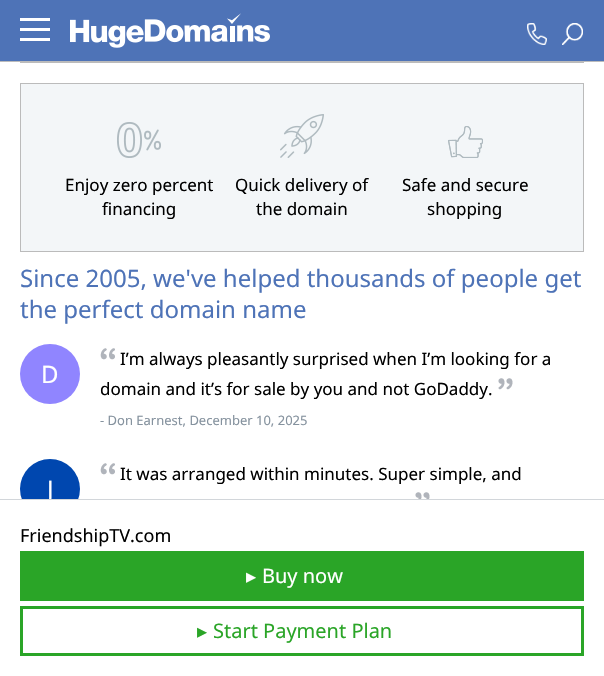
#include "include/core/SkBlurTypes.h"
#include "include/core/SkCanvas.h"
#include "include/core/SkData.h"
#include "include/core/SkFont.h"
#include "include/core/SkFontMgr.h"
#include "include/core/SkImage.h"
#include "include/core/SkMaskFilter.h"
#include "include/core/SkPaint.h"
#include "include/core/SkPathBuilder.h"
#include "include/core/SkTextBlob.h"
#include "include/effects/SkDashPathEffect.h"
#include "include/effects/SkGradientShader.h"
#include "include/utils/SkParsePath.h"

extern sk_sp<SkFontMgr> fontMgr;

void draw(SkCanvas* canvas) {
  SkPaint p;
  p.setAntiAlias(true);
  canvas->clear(SK_ColorWHITE);
  p.setStyle(SkPaint::kStroke_Style);
  p.setStrokeWidth(1);
  p.setColor(SkColorSetRGB(187, 187, 187));
  canvas->drawRect(SkRect::MakeLTRB(20.5f, -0.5f, 583.5f, 62.5f), p);
  p.setStyle(SkPaint::kFill_Style);
  p.setColor(SkColorSetRGB(78, 115, 183));
  canvas->drawRect(SkRect::MakeLTRB(0, 0, 604, 61), p);
  p.setColor(SkColorSetRGB(187, 187, 187));
  canvas->drawRect(SkRect::MakeLTRB(0, 61, 604, 62), p);
  p.setColor(SK_ColorWHITE);
  canvas->drawRect(SkRect::MakeLTRB(20, 28, 50, 31), p);
  canvas->drawRect(SkRect::MakeLTRB(20, 18, 50, 21), p);
  canvas->drawRect(SkRect::MakeLTRB(20, 38, 50, 41), p);
  canvas->drawImageRect(SkImages::DeferredFromEncodedData(SkData::MakeFromFileName("images/1.png")), SkRect::MakeLTRB(70, 13, 270, 48), SkSamplingOptions());
  canvas->drawImageRect(SkImages::DeferredFromEncodedData(SkData::MakeFromFileName("images/2.png")), SkRect::MakeLTRB(527, 23, 547, 45), SkSamplingOptions());
  canvas->drawImageRect(SkImages::DeferredFromEncodedData(SkData::MakeFromFileName("images/3.png")), SkRect::MakeLTRB(562, 23, 583, 45), SkSamplingOptions());
  p.setColor(SkColorSetRGB(243, 246, 248));
  canvas->drawRect(SkRect::MakeLTRB(20.5f, 83.5f, 583.5f, 251.5f), p);
  p.setStyle(SkPaint::kStroke_Style);
  p.setColor(SkColorSetRGB(187, 187, 187));
  canvas->drawRect(SkRect::MakeLTRB(20.5f, 83.5f, 583.5f, 251.5f), p);
  canvas->drawImageRect(SkImages::DeferredFromEncodedData(SkData::MakeFromFileName("images/4.png")), SkRect::MakeLTRB(117, 122, 161, 158), SkSamplingOptions());
  canvas->drawImageRect(SkImages::DeferredFromEncodedData(SkData::MakeFromFileName("images/5.png")), SkRect::MakeLTRB(280, 114, 324, 158), SkSamplingOptions());
  canvas->drawImageRect(SkImages::DeferredFromEncodedData(SkData::MakeFromFileName("images/6.png")), SkRect::MakeLTRB(448, 126, 483, 158), SkSamplingOptions());
  p.setStyle(SkPaint::kFill_Style);
  p.setColor(SkColorSetRGB(144, 133, 255));
  canvas->drawCircle(50, 374, 30, p);
  canvas->drawImageRect(SkImages::DeferredFromEncodedData(SkData::MakeFromFileName("images/7.png")), SkRect::MakeLTRB(100, 348, 115, 360), SkSamplingOptions());
  canvas->drawImageRect(SkImages::DeferredFromEncodedData(SkData::MakeFromFileName("images/8.png")), SkRect::MakeLTRB(498, 378, 513, 390), SkSamplingOptions());
  canvas->drawImageRect(SkImages::DeferredFromEncodedData(SkData::MakeFromFileName("images/7.png")), SkRect::MakeLTRB(100, 463, 115, 475), SkSamplingOptions());
  canvas->drawImageRect(SkImages::DeferredFromEncodedData(SkData::MakeFromFileName("images/9.png")), SkRect::MakeLTRB(415, 492, 430, 499), SkSamplingOptions());
  p.setColor(SkColorSetRGB(0, 71, 175));
  canvas->drawCircle(50, 489, 30, p);
  p.setColor(SK_ColorWHITE);
  canvas->drawRect(SkRect::MakeLTRB(22, 500, 78, 519), p);
  p.setColor(SkColorSetRGB(42, 165, 39));
  canvas->drawRect(SkRect::MakeLTRB(20, 551, 584, 601), p);
  p.setStyle(SkPaint::kStroke_Style);
  p.setStrokeWidth(3);
  canvas->drawRect(SkRect::MakeLTRB(21.5f, 607.5f, 582.5f, 654.5f), p);
  SkFont font1(fontMgr->matchFamilyStyle("Noto Sans", SkFontStyle::Normal()), 17);
  font1.setSubpixel(true);
  p.setStyle(SkPaint::kFill_Style);
  p.setColor(SK_ColorBLACK);
  canvas->drawString("Enjoy zero percent", 65, 191, font1, p);
  canvas->drawString("financing", 102, 215, font1, p);
  canvas->drawString("Quick delivery of", 235, 191, font1, p);
  canvas->drawString("the domain", 256, 215, font1, p);
  canvas->drawString("Safe and secure", 402, 191, font1, p);
  canvas->drawString("shopping", 427, 215, font1, p);
  SkFont font2(fontMgr->matchFamilyStyle("Noto Sans", SkFontStyle::Normal()), 24);
  font2.setSubpixel(true);
  p.setColor(SkColorSetRGB(78, 115, 183));
  canvas->drawString("Since 2005, we've helped thousands of people get", 20, 287, font2, p);
  canvas->drawString("the perfect domain name", 20, 318, font2, p);
  p.setColor(SK_ColorWHITE);
  canvas->drawString("D", 41, 383, font2, p);
  p.setColor(SK_ColorBLACK);
  canvas->drawString("I’m always pleasantly surprised when I’m looking for a", 120, 365, font1, p);
  canvas->drawString("domain and it’s for sale by you and not GoDaddy.", 100, 395, font1, p);
  SkFont font3(fontMgr->matchFamilyStyle("Noto Sans", SkFontStyle::Normal()), 13);
  font3.setSubpixel(true);
  p.setColor(SkColorSetRGB(133, 146, 158));
  canvas->drawString("- Don Earnest, December 10, 2025", 100, 425, font3, p);
  p.setColor(SK_ColorBLACK);
  canvas->drawString("It was arranged within minutes. Super simple, and", 120, 480, font1, p);
  p.setColor(SK_ColorWHITE);
  canvas->drawString("J", 47, 498, font2, p);
  p.setColor(SkColorSetRGB(210, 214, 218));
  canvas->drawRect(SkRect::MakeLTRB(0, 499, 604, 500), p);
  SkFont font4(fontMgr->matchFamilyStyle("Noto Sans", SkFontStyle::Normal()), 18);
  font4.setSubpixel(true);
  p.setColor(SK_ColorBLACK);
  canvas->drawString("FriendshipTV.com", 20, 542, font4, p);
  SkFont font5(fontMgr->matchFamilyStyle("DejaVu Sans", SkFontStyle::Normal()), 20);
  font5.setSubpixel(true);
  p.setColor(SK_ColorWHITE);
  canvas->drawString("▸", 246, 583, font5, p);
  SkFont font6(fontMgr->matchFamilyStyle("Noto Sans", SkFontStyle::Normal()), 20);
  font6.setSubpixel(true);
  canvas->drawString("Buy now", 262, 583, font6, p);
  p.setColor(SkColorSetRGB(42, 165, 39));
  canvas->drawString("▸", 197, 638, font5, p);
  canvas->drawString("Start Payment Plan", 213, 638, font6, p);
}
